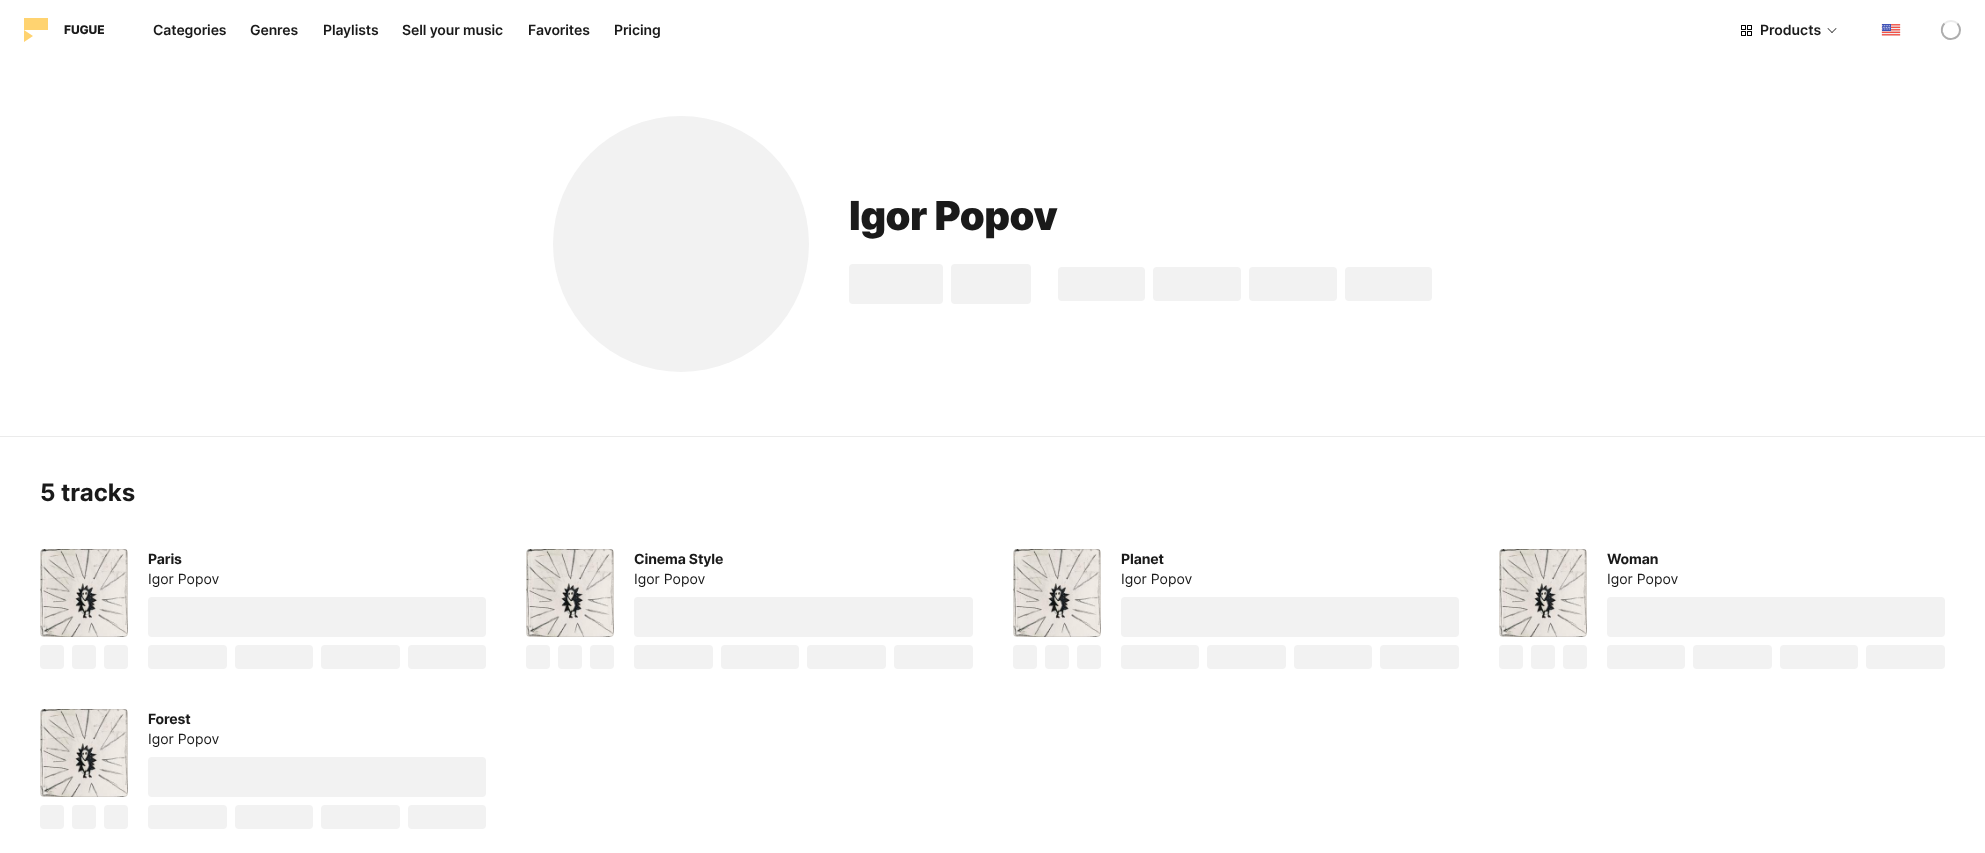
(async () => {
const canvas = document.querySelector("canvas")
canvas.width = 1985
canvas.height = 853
const c = canvas.getContext("2d")
c.miterLimit = 4
c.fontKerning = "normal"
function T(s,x,y){c.fillText(s,x,y)}
function R(x,y,w,h){c.fillRect(x,y,w,h)}
function Q(x,y,w,h,r){c.beginPath();c.roundRect(x,y,w,h,r);c.fill()}
async function I(src,x,y,w,h){const img=new Image();img.src=src;await img.decode();c.drawImage(img,x,y,w,h)}
let path
c.fillStyle="#fff"
R(0,0,1985,853)
c.fillStyle="#ffd370"
path = new Path2D("M48 30v-12h-24v24l9-6l-9-6z")
c.fill(path)
c.letterSpacing="-0.1px"
c.font="800 12px Inter"
c.fillStyle="#1a1a1a"
T("FUGUE",64,34)
c.font="600 14px Inter"
T("Categories",153,35)
T("Genres",250,35)
T("Playlists",323,35)
T("Sell your music",402,35)
T("Favorites",528,35)
T("Pricing",614,35)
await I("1.png",1741,25,11,11)
c.letterSpacing="0px"
T("Products",1760,35)
path = new Path2D("M1828 28l4.5 4.5l-.5 .5l-4.5-4.5z")
c.fill(path)
path = new Path2D("M1831.5 32.5l4.5-4.5l.5 .5l-4.5 4.5z")
c.fill(path)
await I("2.png",1881,24,20,12)
path = new Path2D("M1944.5 23.5c3.5-3.5 9.5-3.5 13 0")
c.strokeStyle="#ebebeb"
c.lineWidth=2
c.stroke(path)
path = new Path2D("M1957.5 23.5c1.5 2 2.5 4 2.5 6.5c0 10.5-15.5 12.5-18 2c-.5-3 .5-6.5 2.5-8.5")
c.strokeStyle="#999999cc"
c.stroke(path)
c.fillStyle="#f2f2f2"
c.beginPath()
c.arc(681,244,128,0,7)
c.fill()
c.letterSpacing="-0.5px"
c.font="900 40px Inter"
c.fillStyle="#1a1a1a"
T("Igor Popov",849,230)
c.fillStyle="#f2f2f2"
Q(849,264,94,40,4)
c.beginPath()
c.roundRect(951,264,40,40,[4,0,0,4])
c.fill()
c.beginPath()
c.roundRect(991,264,40,40,[0,4,4,0])
c.fill()
Q(1058,267,87,34,4)
Q(1153,267,88,34,4)
Q(1249,267,88,34,4)
Q(1345,267,87,34,4)
c.fillStyle="#ebebeb"
path = new Path2D("M0 436h1985l-1 1h-1983z")
c.fill(path)
c.fillStyle="#e1e1e1"
path = new Path2D("M1985 436v1h-1z")
c.fill(path)
c.fillStyle="#e2e2e2"
path = new Path2D("M0 437v-1l1 1z")
c.fill(path)
c.letterSpacing="0px"
c.font="bold 24px Inter"
c.fillStyle="#1a1a1a"
T("5 tracks",40,501)
await I("3.png",40,549,88,88)
c.beginPath()
c.roundRect(40.5,549.5,87,87,3.5)
c.strokeStyle="#00000014"
c.lineWidth=1
c.stroke()
c.fillStyle="#f2f2f2"
Q(40,645,24,24,4)
Q(72,645,24,24,4)
Q(104,645,24,24,4)
c.letterSpacing="-0.1px"
c.font="bold 14px Inter"
c.fillStyle="#1a1a1a"
T("Paris",148,564)
c.letterSpacing="0px"
c.font="14px Inter"
T("Igor Popov",148,584)
c.fillStyle="#f2f2f2"
Q(148,597,338,40,4)
Q(148,645,79,24,4)
Q(235,645,78,24,4)
Q(321,645,79,24,4)
Q(408,645,78,24,4)
await I("4.png",526,549,88,88)
c.beginPath()
c.roundRect(526.5,549.5,87,87,3.5)
c.stroke()
Q(526,645,24,24,4)
Q(558,645,24,24,4)
Q(590,645,24,24,4)
c.letterSpacing="-0.1px"
c.font="bold 14px Inter"
c.fillStyle="#1a1a1a"
T("Cinema Style",634,564)
c.letterSpacing="0px"
c.font="14px Inter"
T("Igor Popov",634,584)
c.fillStyle="#f2f2f2"
Q(634,597,339,40,4)
Q(634,645,79,24,4)
Q(721,645,78,24,4)
Q(807,645,79,24,4)
Q(894,645,79,24,4)
await I("5.png",1013,549,88,88)
c.beginPath()
c.roundRect(1013.5,549.5,87,87,3.5)
c.stroke()
Q(1013,645,24,24,4)
Q(1045,645,24,24,4)
Q(1077,645,24,24,4)
c.letterSpacing="-0.1px"
c.font="bold 14px Inter"
c.fillStyle="#1a1a1a"
T("Planet",1121,564)
c.letterSpacing="0px"
c.font="14px Inter"
T("Igor Popov",1121,584)
c.fillStyle="#f2f2f2"
Q(1121,597,338,40,4)
Q(1121,645,78,24,4)
Q(1207,645,79,24,4)
Q(1294,645,78,24,4)
Q(1380,645,79,24,4)
await I("6.png",1499,549,88,88)
c.beginPath()
c.roundRect(1499.5,549.5,87,87,3.5)
c.stroke()
Q(1499,645,24,24,4)
Q(1531,645,24,24,4)
Q(1563,645,24,24,4)
c.letterSpacing="-0.1px"
c.font="bold 14px Inter"
c.fillStyle="#1a1a1a"
T("Woman",1607,564)
c.letterSpacing="0px"
c.font="14px Inter"
T("Igor Popov",1607,584)
c.fillStyle="#f2f2f2"
Q(1607,597,338,40,4)
Q(1607,645,78,24,4)
Q(1693,645,79,24,4)
Q(1780,645,78,24,4)
Q(1866,645,79,24,4)
await I("3.png",40,709,88,88)
c.beginPath()
c.roundRect(40.5,709.5,87,87,3.5)
c.stroke()
Q(40,805,24,24,4)
Q(72,805,24,24,4)
Q(104,805,24,24,4)
c.letterSpacing="-0.1px"
c.font="bold 14px Inter"
c.fillStyle="#1a1a1a"
T("Forest",148,724)
c.letterSpacing="0px"
c.font="14px Inter"
T("Igor Popov",148,744)
c.fillStyle="#f2f2f2"
Q(148,757,338,40,4)
Q(148,805,79,24,4)
Q(235,805,78,24,4)
Q(321,805,79,24,4)
Q(408,805,78,24,4)
})()
